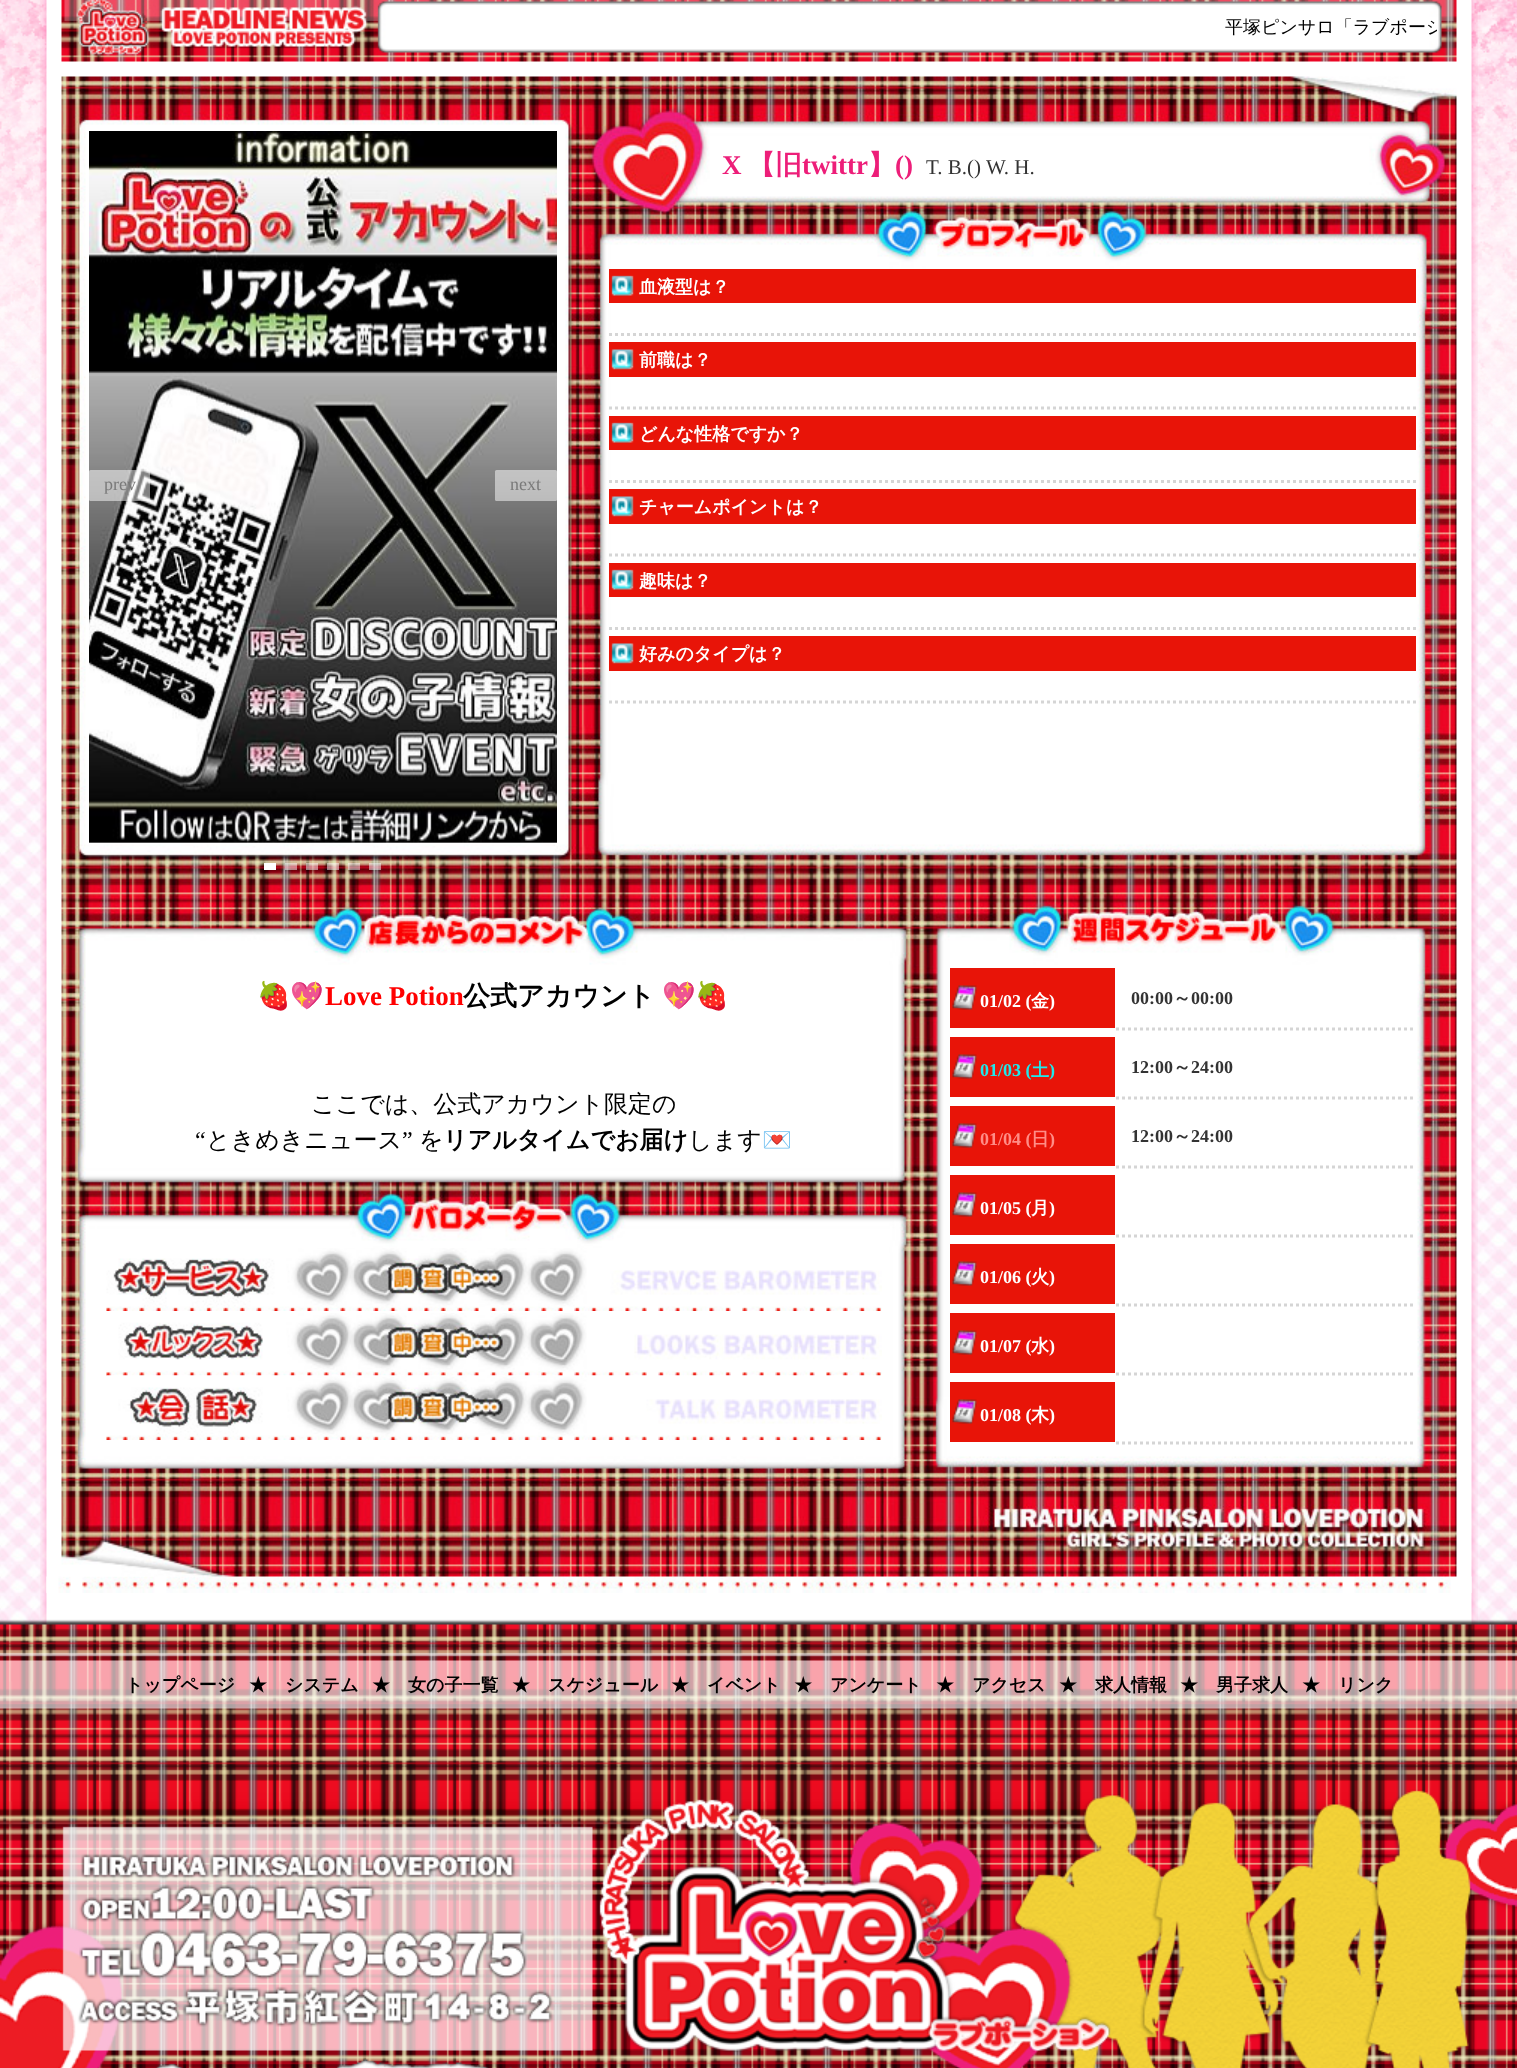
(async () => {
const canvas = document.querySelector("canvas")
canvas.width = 1517
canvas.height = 2068
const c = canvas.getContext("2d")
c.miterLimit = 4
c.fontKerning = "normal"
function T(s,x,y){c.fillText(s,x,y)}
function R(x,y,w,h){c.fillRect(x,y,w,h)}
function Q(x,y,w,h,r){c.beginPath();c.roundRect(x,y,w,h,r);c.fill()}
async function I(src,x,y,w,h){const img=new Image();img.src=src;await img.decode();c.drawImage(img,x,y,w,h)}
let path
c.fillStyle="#fff"
R(0,0,1517,2068)
await I("1.png",0,0,1517,1625)
await I("2.png",0,0,1517,480)
await I("3.png",40,0,1438,1625)
await I("4.png",61,0,1396,62)
c.save()
c.beginPath()
c.rect(387,8,1050,39)
c.clip()
c.font="500 18px WenQuanYi Zen Hei"
c.fillStyle="#000"
T("平塚ピンサロ「ラブポーシ",1225,33)
c.restore()
await I("13.png",46,1576,1426,17)
await I("5.png",61,76,1396,1501)
c.font="bold 27px Liberation Serif"
c.fillStyle="#ed1e79"
T("X",722,174)
c.font="bold 27px WenQuanYi Zen Hei"
T("【旧",748,174)
c.font="bold 27px Liberation Serif"
T("twittr",802,174)
c.font="bold 27px WenQuanYi Zen Hei"
T("】",868,174)
c.font="bold 27px Liberation Serif"
T("()",895,174)
c.font="21px Liberation Serif"
c.fillStyle="#333"
T("T. B.() W. H.",926,174)
await I("6.png",89,131,468,712)
c.fillStyle="#ffffff80"
Q(89,470,61,31,1.5)
c.font="18px Liberation Serif"
c.fillStyle="#797979"
T("prev",104,490)
c.fillStyle="#ffffff80"
Q(495,470,62,31,1.5)
c.fillStyle="#797979"
T("next",510,490)
c.fillStyle="#fff"
R(264,863,12,7)
c.fillStyle="#ffffff80"
R(285,863,12,7)
R(306,863,12,7)
R(327,863,12,7)
R(348,863,12,7)
R(369,863,12,7)
c.fillStyle="#e81408"
R(609,269,807,34)
await I("7.png",611,275,23,21)
c.font="bold 18px WenQuanYi Zen Hei"
c.fillStyle="#fff"
T("血液型は？",639,293)
path = new Path2D("M609 334.5h807")
c.strokeStyle="#d5d5d5"
c.lineWidth=3
c.setLineDash([3,3])
c.stroke(path)
c.fillStyle="#e81408"
R(609,342,807,35)
await I("8.png",611,349,23,21)
c.fillStyle="#fff"
T("前職は？",639,366)
path = new Path2D("M609 408h807")
c.stroke(path)
c.fillStyle="#e81408"
R(609,416,807,34)
await I("7.png",611,422,23,21)
c.fillStyle="#fff"
T("どんな性格ですか？",639,440)
path = new Path2D("M609 481.5h807")
c.stroke(path)
c.fillStyle="#e81408"
R(609,489,807,35)
await I("8.png",611,496,23,21)
c.fillStyle="#fff"
T("チャームポイントは？",639,513)
path = new Path2D("M609 555h807")
c.stroke(path)
c.fillStyle="#e81408"
R(609,563,807,34)
await I("7.png",611,569,23,21)
c.fillStyle="#fff"
T("趣味は？",639,587)
path = new Path2D("M609 628.5h807")
c.stroke(path)
c.fillStyle="#e81408"
R(609,636,807,35)
await I("8.png",611,643,23,21)
c.fillStyle="#fff"
T("好みのタイプは？",639,660)
path = new Path2D("M609 702h807")
c.stroke(path)
c.font="27px Noto Color Emoji"
c.fillStyle="#000"
T("🍓💖",257,1005)
c.font="bold 27px Liberation Serif"
c.fillStyle="#f00"
T("Love Potion",325,1005)
c.font="bold 27px WenQuanYi Zen Hei"
c.fillStyle="#000"
T("公式アカウント",463,1005)
c.font="27px Noto Color Emoji"
T("💖🍓",662,1005)
c.font="500 24px WenQuanYi Zen Hei"
T("ここでは、公式アカウント限定の",311,1112)
c.font="24px Liberation Serif"
T("“",195,1148)
c.font="500 24px WenQuanYi Zen Hei"
T("ときめきニュース",206,1148)
c.font="24px Liberation Serif"
T("”",402,1148)
c.font="500 24px WenQuanYi Zen Hei"
T("を",419,1148)
c.font="bold 24px WenQuanYi Zen Hei"
T("リアルタイムでお届け",443,1148)
c.font="500 24px WenQuanYi Zen Hei"
T("します",688,1148)
c.font="24px Noto Color Emoji"
T("💌",762,1148)
c.fillStyle="#e81408"
R(950,968,165,60)
await I("9.png",952,985,25,25)
c.font="bold 18px Liberation Serif"
c.fillStyle="#fff"
T("01/02 (",980,1007)
c.font="bold 18px WenQuanYi Zen Hei"
T("金",1031,1007)
c.font="bold 18px Liberation Serif"
T(")",1049,1007)
path = new Path2D("M1116 1029h300")
c.stroke(path)
c.fillStyle="#333"
T("00:00",1131,1004)
c.font="bold 18px WenQuanYi Zen Hei"
T("～",1173,1004)
c.font="bold 18px Liberation Serif"
T("00:00",1191,1004)
c.fillStyle="#e81408"
R(950,1037,165,60)
await I("9.png",952,1054,25,25)
c.fillStyle="#1ee9ed"
T("01/03 (",980,1076)
c.font="bold 18px WenQuanYi Zen Hei"
T("土",1031,1076)
c.font="bold 18px Liberation Serif"
T(")",1049,1076)
path = new Path2D("M1116 1098h300")
c.stroke(path)
c.fillStyle="#333"
T("12:00",1131,1073)
c.font="bold 18px WenQuanYi Zen Hei"
T("～",1173,1073)
c.font="bold 18px Liberation Serif"
T("24:00",1191,1073)
c.fillStyle="#e81408"
R(950,1106,165,60)
await I("9.png",952,1123,25,25)
c.fillStyle="#ff8d87"
T("01/04 (",980,1145)
c.font="bold 18px WenQuanYi Zen Hei"
T("日",1031,1145)
c.font="bold 18px Liberation Serif"
T(")",1049,1145)
path = new Path2D("M1116 1167h300")
c.stroke(path)
c.fillStyle="#333"
T("12:00",1131,1142)
c.font="bold 18px WenQuanYi Zen Hei"
T("～",1173,1142)
c.font="bold 18px Liberation Serif"
T("24:00",1191,1142)
c.fillStyle="#e81408"
R(950,1175,165,60)
await I("9.png",952,1192,25,25)
c.fillStyle="#fff"
T("01/05 (",980,1214)
c.font="bold 18px WenQuanYi Zen Hei"
T("月",1031,1214)
c.font="bold 18px Liberation Serif"
T(")",1049,1214)
path = new Path2D("M1116 1236h300")
c.stroke(path)
c.fillStyle="#e81408"
R(950,1244,165,60)
await I("9.png",952,1261,25,25)
c.fillStyle="#fff"
T("01/06 (",980,1283)
c.font="bold 18px WenQuanYi Zen Hei"
T("火",1031,1283)
c.font="bold 18px Liberation Serif"
T(")",1049,1283)
path = new Path2D("M1116 1305h300")
c.stroke(path)
c.fillStyle="#e81408"
R(950,1313,165,60)
await I("9.png",952,1330,25,25)
c.fillStyle="#fff"
T("01/07 (",980,1352)
c.font="bold 18px WenQuanYi Zen Hei"
T("水",1031,1352)
c.font="bold 18px Liberation Serif"
T(")",1049,1352)
path = new Path2D("M1116 1374h300")
c.stroke(path)
c.fillStyle="#e81408"
R(950,1382,165,60)
await I("9.png",952,1399,25,25)
c.fillStyle="#fff"
T("01/08 (",980,1421)
c.font="bold 18px WenQuanYi Zen Hei"
T("木",1031,1421)
c.font="bold 18px Liberation Serif"
T(")",1049,1421)
path = new Path2D("M1116 1443h300")
c.stroke(path)
await I("10.png",106,1248,776,63)
await I("11.png",106,1313,776,63)
await I("12.png",106,1375,776,65)
await I("14.png",0,1619,1517,449)
c.font="bold 18px WenQuanYi Zen Hei"
c.fillStyle="#000"
T("トップページ",125,1691)
T("★",249,1691)
T("システム",285,1691)
T("★",372,1691)
T("女の子一覧",408,1691)
T("★",512,1691)
T("スケジュール",548,1691)
T("★",671,1691)
T("イベント",707,1691)
T("★",794,1691)
T("アンケート",830,1691)
T("★",936,1691)
T("アクセス",972,1691)
T("★",1059,1691)
T("求人情報",1095,1691)
T("★",1180,1691)
T("男子求人",1216,1691)
T("★",1302,1691)
T("リンク",1338,1691)
})()
